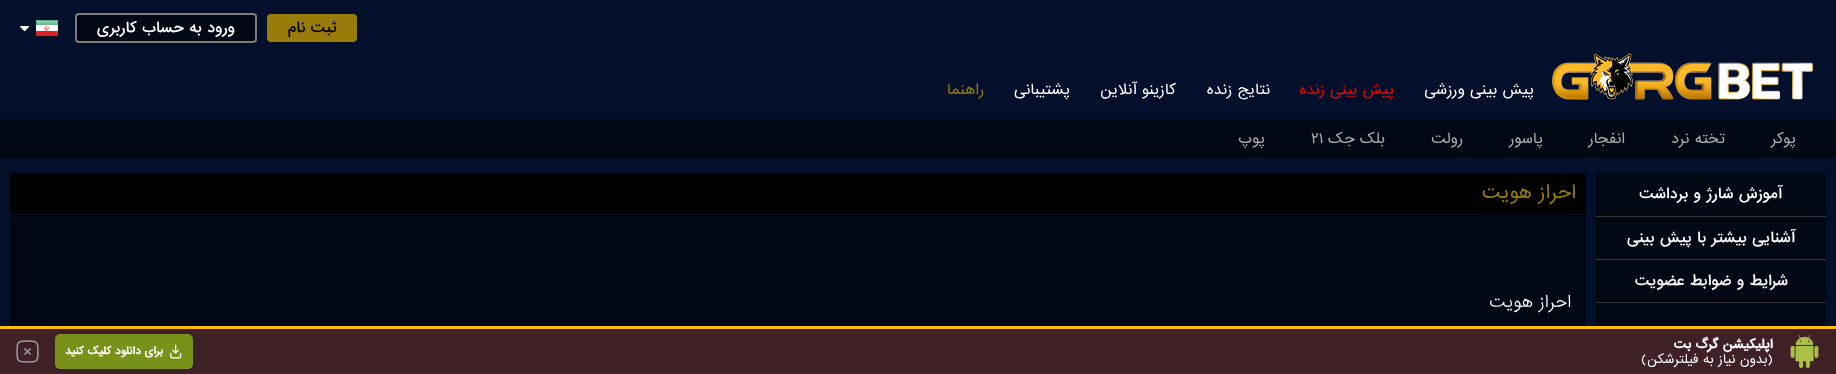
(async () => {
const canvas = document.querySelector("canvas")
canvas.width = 1836
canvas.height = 374
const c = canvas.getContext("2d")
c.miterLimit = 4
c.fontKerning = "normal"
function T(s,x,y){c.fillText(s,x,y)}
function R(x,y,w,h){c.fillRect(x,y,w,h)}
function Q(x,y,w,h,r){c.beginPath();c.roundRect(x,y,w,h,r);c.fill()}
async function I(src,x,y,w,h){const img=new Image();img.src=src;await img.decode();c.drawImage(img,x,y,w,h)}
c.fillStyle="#030f2b"
R(0,0,1836,374)
c.fillStyle="#977c09"
Q(267,14,90,28,4)
c.direction="rtl"
c.font="500 14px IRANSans"
c.fillStyle="#000"
T("ثبت نام",337,32)
c.fillStyle="#020714"
c.beginPath()
c.roundRect(76,14,180,28,3)
c.fill()
c.strokeStyle="#7a7a7a"
c.lineWidth=2
c.stroke()
c.fillStyle="#fff"
T("ورود به حساب کاربری",235,32)
await I("1.png",35,20,24,17)
await I("2.png",20,26,10,6)
await I("3.png",1552,53,261,47)
c.font="14px IRANSans"
T("پیش بینی ورزشی",1534,94)
c.fillStyle="#f00"
T("پیش بینی زنده",1394,94)
c.fillStyle="#fff"
T("نتایج زنده",1270,94)
T("کازینو آنلاین",1176,94)
T("پشتیبانی",1070,94)
c.fillStyle="#977c09"
T("راهنما",984,94)
c.fillStyle="#020714"
R(0,119,1836,39)
c.fillStyle="#acacac"
T("پوکر",1796,143)
T("تخته نرد",1725,143)
T("انفجار",1625,143)
T("پاسور",1543,143)
T("رولت",1463,143)
T("بلک جک",1385,143)
c.direction="ltr"
T("۲۱",1311,143)
c.direction="rtl"
T("پوپ",1265,143)
c.fillStyle="#020714"
R(1596,173,230,153)
c.fillStyle="#333"
R(1596,216,230,1)
c.font="500 14px IRANSans"
c.fillStyle="#fff"
T("آموزش شارژ و برداشت",1782,198)
c.fillStyle="#333"
R(1596,259,230,1)
c.fillStyle="#fff"
T("آشنایی بيشتر با پیش بینی",1795,242)
c.fillStyle="#333"
R(1596,302,230,1)
c.fillStyle="#fff"
T("شرایط و ضوابط عضویت",1788,285)
c.fillStyle="#020714"
R(10,215,1576,111)
c.fillStyle="#000"
R(10,173,1576,41)
c.font="18px IRANSans"
c.fillStyle="#977c09"
T("احراز هویت",1576,198)
c.font="300 16px IRANSans"
c.fillStyle="#fff"
T("احراز هويت",1571,307)
c.fillStyle="#3f2024"
R(0,329,1836,45)
c.fillStyle="#ffba00"
R(0,326,1836,3)
await I("4.png",1790,335,29,33)
c.font="bold 12px IRANSans"
c.fillStyle="#fff"
T("اپلیکیشن گرگ بت",1773,348)
c.font="12px IRANSans"
T("(بدون نیاز به فیلترشکن)",1773,363)
c.fillStyle="#789118"
Q(55,334,138,35,5)
await I("5.png",170,344,12,15)
c.font="bold 10px IRANSans"
c.fillStyle="#fff"
T("برای دانلود کلیک کنید",163,354)
await I("6.png",16,340,23,23)
})()
